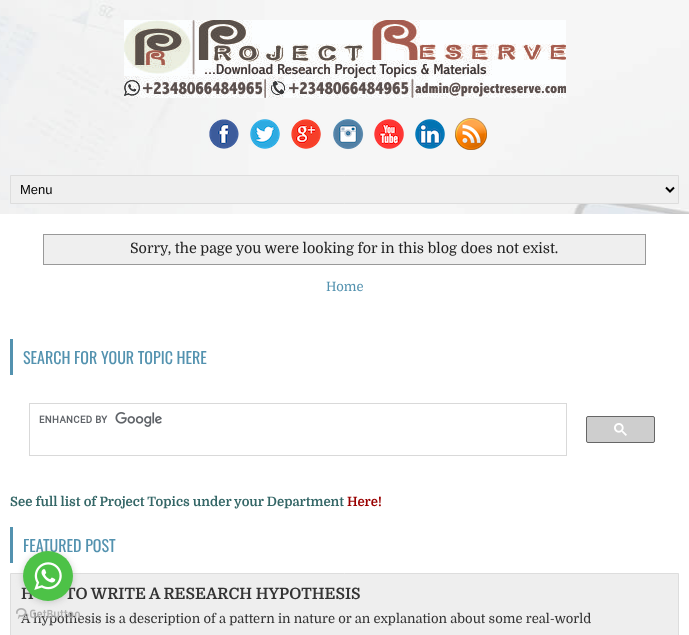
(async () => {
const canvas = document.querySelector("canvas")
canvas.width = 689
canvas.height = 635
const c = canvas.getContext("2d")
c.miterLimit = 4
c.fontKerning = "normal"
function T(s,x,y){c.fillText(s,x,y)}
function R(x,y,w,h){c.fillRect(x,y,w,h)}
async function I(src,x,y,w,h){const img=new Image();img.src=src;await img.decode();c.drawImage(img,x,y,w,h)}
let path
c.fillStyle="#fff"
R(0,0,689,635)
await I("1.png",0,0,689,214)
await I("2.png",124,20,442,78)
await I("3.png",209,119,30,30)
await I("4.png",250,119,30,30)
await I("5.png",291,119,30,30)
await I("6.png",333,119,31,31)
await I("7.png",374,119,30,30)
await I("8.png",415,119,30,30)
await I("9.png",455,118,32,32)
c.fillStyle="#efefef"
c.beginPath()
c.rect(10.5,175.5,668,28)
c.fill()
c.strokeStyle="#ddd"
c.stroke()
path = new Path2D("M666 187.5l4 4l4-4")
c.strokeStyle="#000"
c.lineWidth=2
c.stroke(path)
c.font="13px Liberation Sans"
c.fillStyle="#000"
T("Menu",20,194)
c.strokeStyle="#999"
c.lineWidth=1
c.strokeRect(43.5,234.5,602,30)
c.fillStyle="#efefef"
R(44,235,601,29)
c.font="14.3px Domine"
c.fillStyle="#222"
T("Sorry, the page you were looking for in this blog does not exist.",130,253)
c.font="13px Domine"
c.fillStyle="#5392af"
T("Home",326,291)
R(10,339,3,36)
c.font="16px Oswald"
T("SEARCH FOR YOUR TOPIC HERE",23,364)
c.strokeStyle="#d9d9d9"
c.strokeRect(29.5,403.5,537,52)
await I("10.png",39,412,123,15)
c.fillStyle="#cecece"
c.beginPath()
c.roundRect(586.5,416.5,68,26,1.5)
c.fill()
c.strokeStyle="#666"
c.stroke()
await I("11.png",614,423,13,13)
c.font="bold 13px Domine"
c.fillStyle="#366"
T("See full list of Project Topics under your Department",10,506)
c.fillStyle="#900"
T("Here!",347,506)
c.fillStyle="#5392af"
R(10,527,3,36)
c.font="16px Oswald"
T("FEATURED POST",23,552)
c.fillStyle="#eee"
c.beginPath()
c.rect(10.5,573.5,668,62)
c.fill()
c.strokeStyle="#ddd"
c.stroke()
c.font="bold 15.6px Domine"
c.fillStyle="#333"
T("H",21,599)
T("TO WRITE A RESEARCH HYPOTHESIS",65,599)
c.font="13px Domine"
T("A hypothesis is a description of a pattern in nature or an explanation about some real-world",21,623)
await I("13.png",16,608,64,11)
c.fillStyle="#88888866"
c.filter="blur(3.5px)"
c.beginPath()
c.roundRect(23,552,50,50,25)
c.fill()
c.filter="none"
c.fillStyle="#4dc247"
c.beginPath()
c.arc(48,576,25,0,7)
c.fill()
await I("12.png",34,562,28,28)
})()
